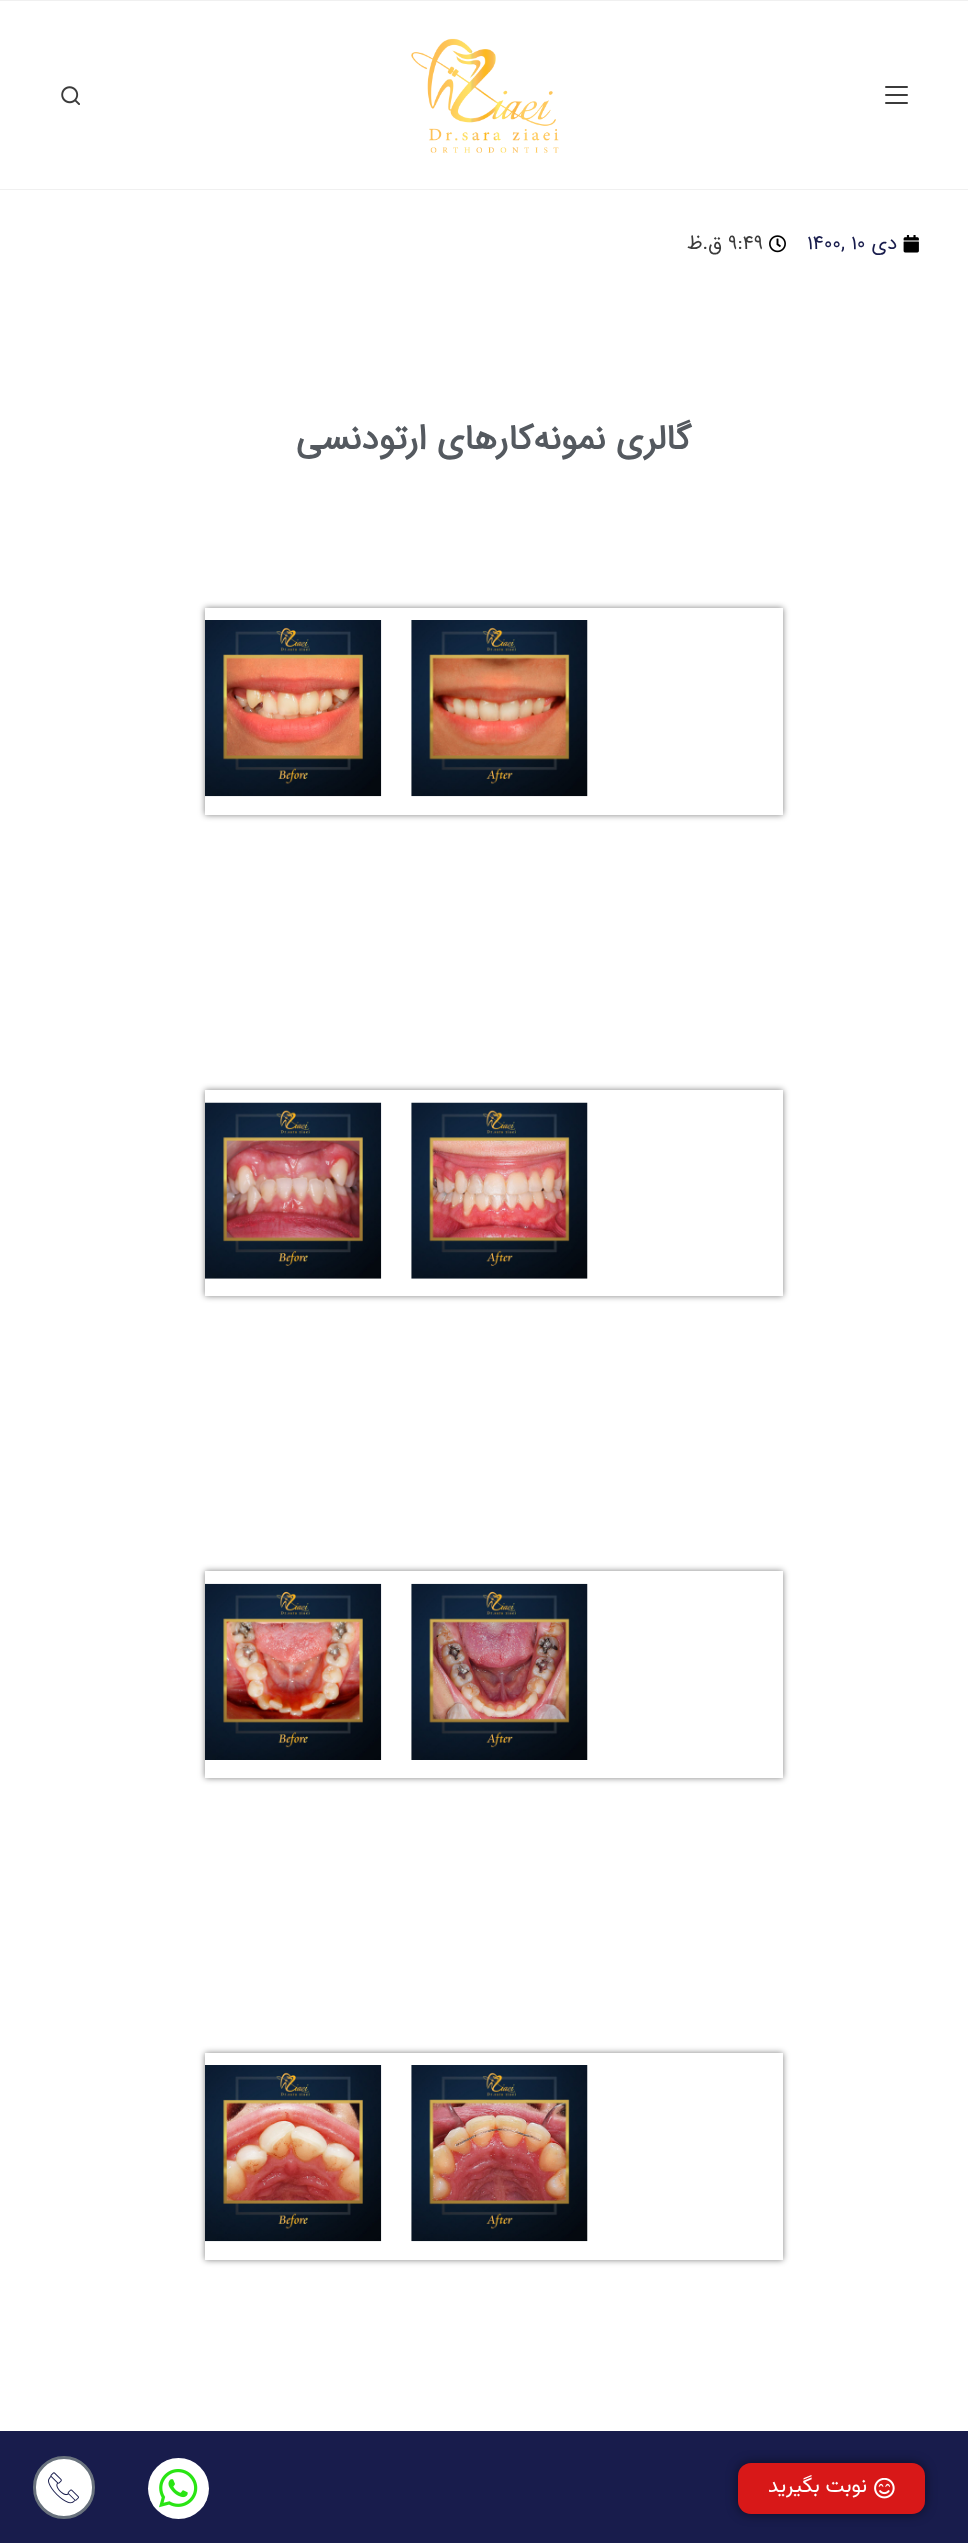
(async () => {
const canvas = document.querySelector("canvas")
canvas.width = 968
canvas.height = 2543
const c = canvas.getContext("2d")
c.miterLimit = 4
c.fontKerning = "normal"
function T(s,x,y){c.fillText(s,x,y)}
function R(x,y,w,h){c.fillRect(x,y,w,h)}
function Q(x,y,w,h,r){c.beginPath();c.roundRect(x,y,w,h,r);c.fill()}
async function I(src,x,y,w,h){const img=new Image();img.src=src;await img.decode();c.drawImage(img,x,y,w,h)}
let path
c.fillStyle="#fff"
R(0,0,968,2543)
c.fillStyle="#f0f0f0"
R(0,0,968,1)
R(0,189,968,1)
c.fillStyle="#3b3b3b"
Q(885,86,23,2,1)
Q(885,94,23,2,1)
Q(885,102,23,2,1)
await I("1.png",411,38,148,115)
await I("2.png",61,86,19,19)
await I("3.png",903,235,16,18)
c.direction="rtl"
c.font="20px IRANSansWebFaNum"
c.fillStyle="#181c4c"
T("دی",897,249)
c.direction="ltr"
T("۱۴۰۰, ۱۰",807,249)
await I("4.png",769,235,17,18)
c.fillStyle="#3b3b3b"
T("۹:۴۹",728,249)
c.direction="rtl"
T("ق.ظ",722,249)
c.font="bold 35px IRANSansWebFaNum"
c.fillStyle="#54595f"
T("گالری نمونه‌کارهای ارتودنسی",691,449)
c.save()
path = new Path2D("M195 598h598v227h-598zm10 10h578v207h-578z")
c.clip(path,"evenodd")
c.fillStyle="#00000080"
c.filter="blur(3px)"
c.beginPath()
c.rect(205,608,578,207)
c.fill()
c.filter="none"
c.restore()
await I("5.png",411,620,177,177)
await I("6.png",205,620,177,177)
c.save()
path = new Path2D("M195 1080h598v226h-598zm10 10h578v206h-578z")
c.clip(path,"evenodd")
c.fillStyle="#00000080"
c.filter="blur(3px)"
c.beginPath()
c.rect(205,1090,578,206)
c.fill()
c.filter="none"
c.restore()
await I("7.png",411,1102,177,177)
await I("8.png",205,1102,177,177)
c.save()
path = new Path2D("M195 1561h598v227h-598zm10 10h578v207h-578z")
c.clip(path,"evenodd")
c.fillStyle="#00000080"
c.filter="blur(3px)"
c.beginPath()
c.rect(205,1571,578,207)
c.fill()
c.filter="none"
c.restore()
await I("9.png",411,1583,177,177)
await I("10.png",205,1583,177,177)
c.save()
path = new Path2D("M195 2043h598v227h-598zm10 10h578v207h-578z")
c.clip(path,"evenodd")
c.fillStyle="#00000080"
c.filter="blur(3px)"
c.beginPath()
c.rect(205,2053,578,207)
c.fill()
c.filter="none"
c.restore()
await I("11.png",411,2065,177,177)
await I("12.png",205,2065,177,177)
c.fillStyle="#181c4c"
R(0,2431,968,112)
c.fillStyle="#00000080"
c.filter="blur(6px)"
c.beginPath()
c.roundRect(738,2463,187,51,13)
c.fill()
c.filter="none"
c.fillStyle="#d81818"
Q(738,2463,187,51,13)
await I("13.png",874,2478,21,21)
c.font="21.25px Vazirmatn"
c.fillStyle="#fff"
T("نوبت بگیرید",867,2492)
c.beginPath()
c.arc(178.5,2488.5,30.5,0,7)
c.fill()
await I("14.png",159,2469,39,39)
c.beginPath()
c.roundRect(34.5,2457.5,59,60,29.5)
c.fill()
c.strokeStyle="#69727d"
c.lineWidth=3
c.stroke()
await I("15.png",48,2472,31,32)
})()
